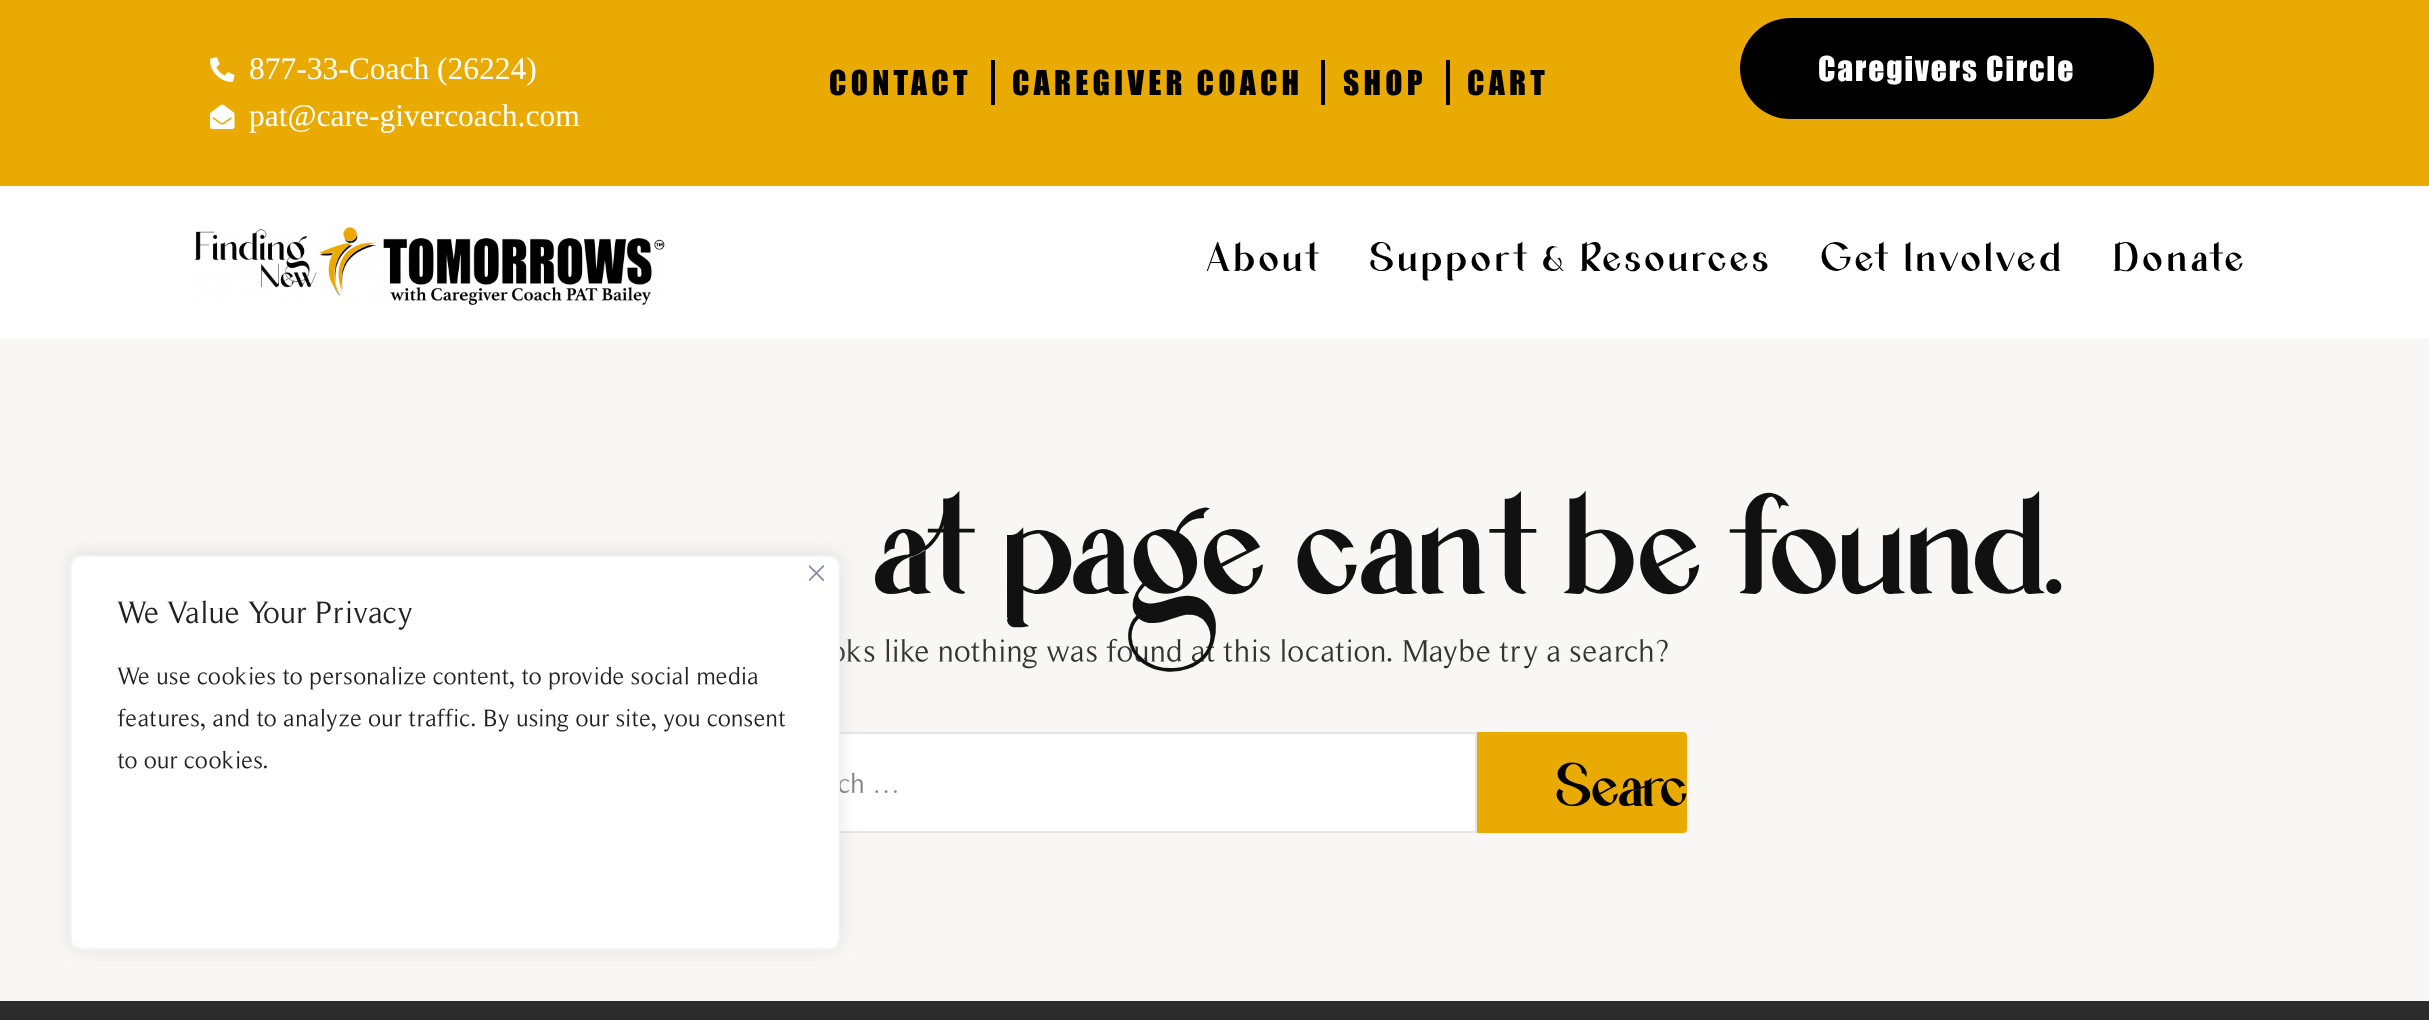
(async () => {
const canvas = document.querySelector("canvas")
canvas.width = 2429
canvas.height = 1020
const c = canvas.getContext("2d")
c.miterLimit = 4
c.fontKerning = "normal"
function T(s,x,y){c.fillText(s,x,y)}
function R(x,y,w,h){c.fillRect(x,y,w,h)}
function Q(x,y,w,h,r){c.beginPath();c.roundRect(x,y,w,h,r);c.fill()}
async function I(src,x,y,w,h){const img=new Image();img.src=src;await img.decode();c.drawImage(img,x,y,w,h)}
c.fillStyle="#fff"
R(0,0,2429,1020)
c.fillStyle="#e9aa03"
R(0,0,2429,186)
await I("1.png",210,57,25,25)
c.font="31.5px Liberation Serif"
c.fillStyle="#fff"
T("877-33-Coach (26224)",249,79)
await I("2.png",210,104,25,26)
T("pat@care-givercoach.com",249,126)
c.letterSpacing="4.25px"
c.font="31.5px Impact"
c.fillStyle="#010000"
T("CONTACT",829,95)
R(991,60,4,45)
T("CAREGIVER COACH",1012,95)
R(1321,60,4,45)
T("SHOP",1343,95)
R(1446,60,4,45)
T("CART",1467,95)
c.fillStyle="#000"
Q(1740,18,414,101,50.5)
c.letterSpacing="1.9px"
c.fillStyle="#fff"
T("Caregivers Circle",1818,81)
await I("3.png",194,227,471,78)
c.letterSpacing="4.25px"
c.font="bold 21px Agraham"
c.fillStyle="#010000"
T("About",1206,271)
T("Support & Resources",1370,271)
T("Get Involved",1821,271)
T("Donate",2113,271)
c.fillStyle="#f8f7f5"
R(0,338,2429,663)
await I("9.png",840,638,828,31)
c.fillStyle="#fff"
R(840,732,637,101)
c.strokeStyle="#0000001a"
c.lineWidth=2
c.strokeRect(743,733,733,99)
await I("10.png",840,772,57,21)
c.fillStyle="#acabab4d"
c.filter="blur(9px)"
c.beginPath()
c.roundRect(70,553,770,396,11)
c.fill()
c.filter="none"
c.fillStyle="#fff"
c.beginPath()
c.roundRect(71,556,768,393,10)
c.fill()
c.strokeStyle="#f4f4f4"
c.stroke()
await I("4.png",809,565,15,16)
await I("5.png",117,600,295,30)
await I("6.png",117,666,641,24)
await I("7.png",117,708,669,24)
await I("8.png",117,750,150,19)
c.letterSpacing="0px"
c.font="bold 73.5px Agraham"
c.fillStyle="#111"
T("at page can’t be found.",872,594)
c.fillStyle="#e9aa03"
c.beginPath()
c.roundRect(1477,732,210,101,[0,4,4,0])
c.fill()
c.font="bold 31.5px Agraham"
c.fillStyle="#010000"
T("Searc",1556,806)
c.fillStyle="#2c2c2c"
R(0,1001,2429,19)
})()
